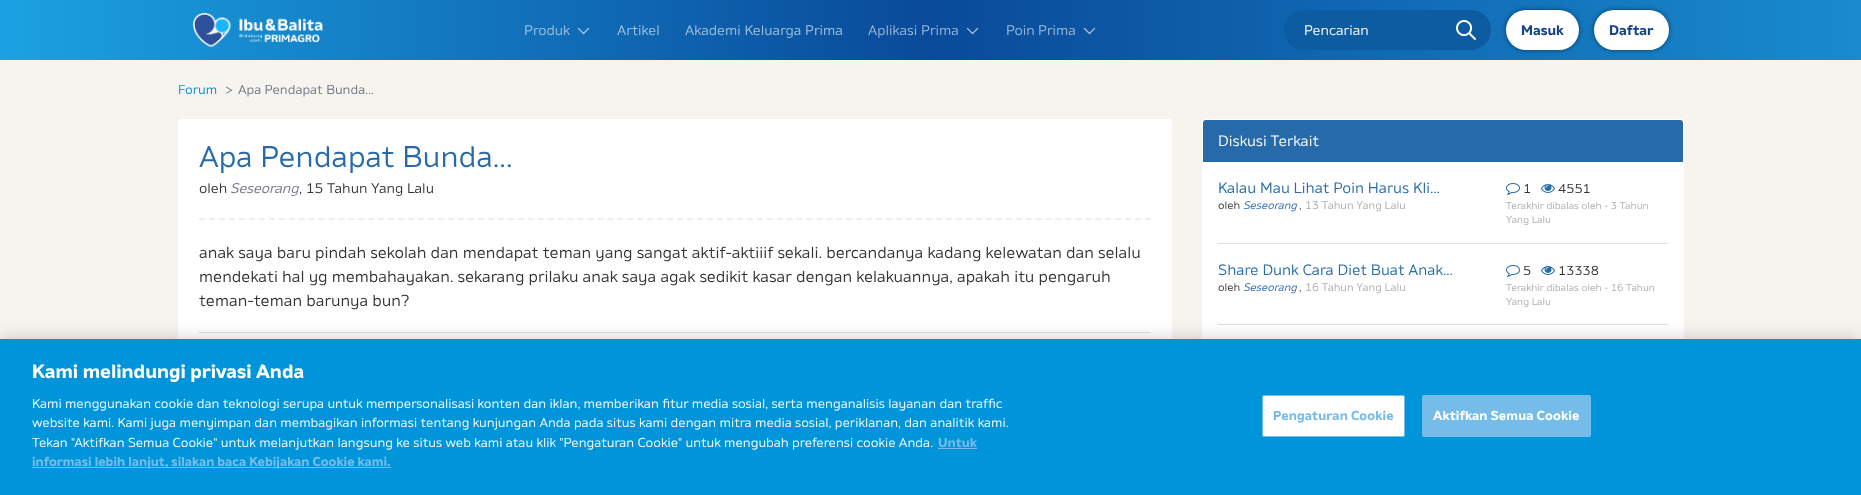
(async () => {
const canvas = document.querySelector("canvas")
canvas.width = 1861
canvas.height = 495
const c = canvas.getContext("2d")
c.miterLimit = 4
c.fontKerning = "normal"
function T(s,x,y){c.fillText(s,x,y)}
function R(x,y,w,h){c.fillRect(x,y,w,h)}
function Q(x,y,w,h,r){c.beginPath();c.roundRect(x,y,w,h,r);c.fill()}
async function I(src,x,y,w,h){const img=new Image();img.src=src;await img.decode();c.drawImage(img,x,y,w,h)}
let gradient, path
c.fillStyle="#f5f4ef"
R(0,0,1861,495)
gradient = c.createLinearGradient(0,30,1861,30)
gradient.addColorStop(0,"#1ba2e2")
gradient.addColorStop(.5,"#094a9a")
gradient.addColorStop(1,"#198bce")
c.fillStyle = gradient
R(0,0,1861,60)
await I("1.png",193,13,130,34)
c.font="14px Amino"
c.fillStyle="#9fc2e0"
T("Produk",524,35)
path = new Path2D("M588.5 28.5l-5 5l-5-5")
c.strokeStyle="#9fc4e1"
c.lineWidth=1.4
c.lineCap="round"
c.lineJoin="round"
c.stroke(path)
T("Artikel",617,35)
T("Akademi Keluarga Prima",685,35)
c.fillStyle="#9db8d8"
T("Aplikasi",868,35)
T("Prima",921,35)
path = new Path2D("M977.5 28.5l-5 5l-5-5")
c.strokeStyle="#9db8d8"
c.stroke(path)
T("Poin",1006,35)
T("Prima",1038,35)
path = new Path2D("M1094.5 28.5l-5 5l-5-5")
c.strokeStyle="#9ebbda"
c.stroke(path)
c.fillStyle="#0d5ba1"
Q(1284,10,207,40,20)
c.fillStyle="#fff"
T("Pencarian",1304,35)
await I("2.png",1456,20,20,20)
c.fillStyle="#00000080"
c.filter="blur(2.5px)"
c.beginPath()
c.roundRect(1506,10,73,40,20)
c.fill()
c.filter="none"
c.fillStyle="#fff"
Q(1506,10,73,40,20)
c.font="bold 14px Amino"
c.fillStyle="#184586"
T("Masuk",1521,35)
c.fillStyle="#00000080"
c.filter="blur(2.5px)"
c.beginPath()
c.roundRect(1594,10,75,40,20)
c.fill()
c.filter="none"
c.fillStyle="#fff"
Q(1594,10,75,40,20)
c.fillStyle="#184586"
T("Daftar",1609,35)
c.font="13px Amino"
c.fillStyle="#098ecc"
T("Forum",178,94)
c.fillStyle="#727385"
T(">",225,94)
T("Apa Pendapat Bunda...",238,94)
c.fillStyle="#fff"
Q(178,119,994,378,2)
c.font="30px Amino"
c.fillStyle="#276aa9"
T("Apa Pendapat Bunda...",199,167)
c.font="14px Amino"
c.fillStyle="#333"
T("oleh",199,193)
c.font="italic 14px Amino"
c.fillStyle="#727385"
T("Seseorang",230,193)
c.font="14px Amino"
c.fillStyle="#333"
T(", 15 Tahun Yang Lalu",299,193)
path = new Path2D("M199 219h952")
c.strokeStyle="#efefef"
c.lineWidth=2
c.lineCap="butt"
c.lineJoin="miter"
c.setLineDash([6,3.96])
c.stroke(path)
c.font="16px Amino"
T("anak saya baru pindah sekolah dan mendapat teman yang sangat aktif-aktiiif sekali. bercandanya kadang kelewatan dan selalu",199,258)
T("mendekati hal yg membahayakan. sekarang prilaku anak saya agak sedikit kasar dengan kelakuannya, apakah itu pengaruh",199,282)
T("teman-teman barunya bun?",199,306)
c.fillStyle="#dedfe2"
R(199,332,952,1)
c.fillStyle="#fff"
Q(1202,119,482,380,4)
c.fillStyle="#276aa9"
c.beginPath()
c.roundRect(1203,120,480,42,[3,3,0,0])
c.fill()
c.font="15px Amino"
c.fillStyle="#fff"
T("Diskusi Terkait",1218,146)
c.fillStyle="#dedfe2"
R(1218,243,450,1)
c.fillStyle="#276aa9"
T("Kalau Mau Lihat Poin Harus Kli...",1218,193)
c.font="11px Amino"
c.fillStyle="#333"
T("oleh",1218,209)
c.font="italic 11px Amino"
c.fillStyle="#276aa9"
T("Seseorang",1243,209)
c.font="11px Amino"
c.fillStyle="#333"
T(",",1299,209)
c.fillStyle="#aeacac"
T("13 Tahun Yang Lalu",1305,209)
await I("3.png",1506,183,14,12)
c.font="13px Amino"
c.fillStyle="#333"
T("1",1523,193)
await I("4.png",1541,184,14,9)
T("4551",1558,193)
c.font="10px Amino"
c.fillStyle="#aeacac"
T("Terakhir dibalas oleh - 3 Tahun",1506,209)
T("Yang Lalu",1506,223)
c.fillStyle="#dedfe2"
R(1218,324,450,1)
c.font="15px Amino"
c.fillStyle="#276aa9"
T("Share Dunk Cara Diet Buat Anak...",1218,275)
c.font="11px Amino"
c.fillStyle="#333"
T("oleh",1218,291)
c.font="italic 11px Amino"
c.fillStyle="#276aa9"
T("Seseorang",1243,291)
c.font="11px Amino"
c.fillStyle="#333"
T(",",1299,291)
c.fillStyle="#aeacac"
T("16 Tahun Yang Lalu",1305,291)
await I("3.png",1506,265,14,12)
c.font="13px Amino"
c.fillStyle="#333"
T("5",1523,275)
await I("4.png",1541,266,14,9)
T("13338",1558,275)
c.font="10px Amino"
c.fillStyle="#aeacac"
T("Terakhir dibalas oleh - 16 Tahun",1506,291)
T("Yang Lalu",1506,305)
c.fillStyle="#00000033"
c.filter="blur(9px)"
c.beginPath()
c.rect(0,339,1861,156)
c.fill()
c.filter="none"
c.fillStyle="#0095da"
R(0,339,1861,156)
c.font="bold 19.25px Amino"
c.fillStyle="#fff"
T("Kami melindungi privasi Anda",32,378)
c.font="13px Amino"
T("Kami menggunakan cookie dan teknologi serupa untuk mempersonalisasi konten dan iklan, memberikan fitur media sosial, serta menganalisis layanan dan traffic",32,408)
T("website kami. Kami juga menyimpan dan membagikan informasi tentang kunjungan Anda pada situs kami dengan mitra media sosial, periklanan, dan analitik kami.",32,427)
T("Tekan \"Aktifkan Semua Cookie\" untuk melanjutkan langsung ke situs web kami atau klik \"Pengaturan Cookie\" untuk mengubah preferensi cookie Anda.",32,447)
c.font="bold 13px Amino"
c.fillStyle="#75bde8"
T("Untuk",938,447)
R(938,448,39,1)
R(32,467,359,1)
T("informasi lebih lanjut, silakan baca Kebijakan Cookie kami.",32,466)
c.fillStyle="#fff"
c.beginPath()
c.roundRect(1262.5,395.5,142,41,1.5)
c.fill()
c.strokeStyle="#75bde8"
c.lineWidth=1
c.setLineDash([])
c.stroke()
c.letterSpacing="0.1px"
c.fillStyle="#75bde8"
T("Pengaturan Cookie",1273,420)
c.beginPath()
c.roundRect(1422.5,395.5,168,41,1.5)
c.fill()
c.stroke()
c.fillStyle="#fff"
T("Aktifkan Semua Cookie",1433,420)
})()
